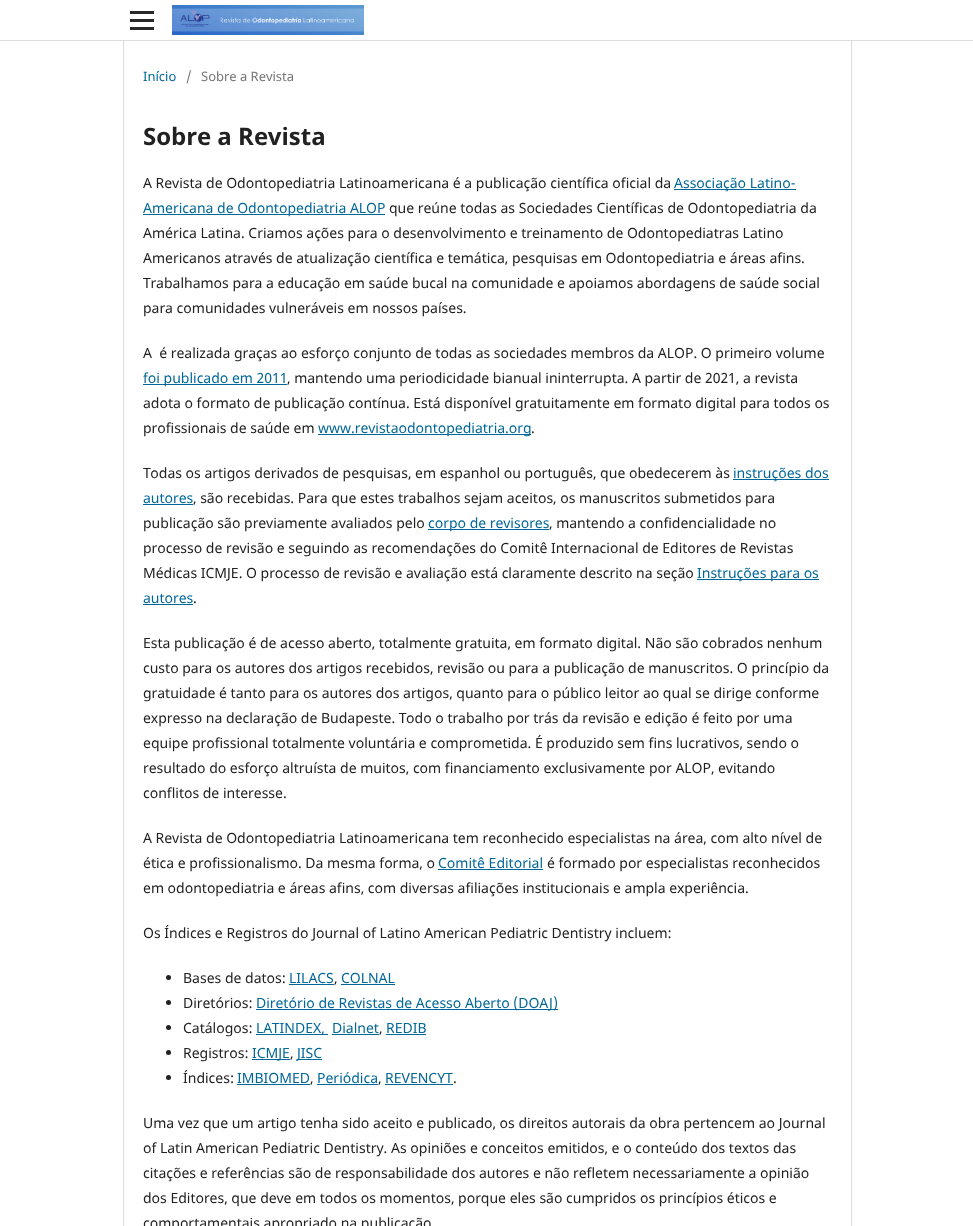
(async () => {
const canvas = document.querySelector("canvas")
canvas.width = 973
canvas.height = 1226
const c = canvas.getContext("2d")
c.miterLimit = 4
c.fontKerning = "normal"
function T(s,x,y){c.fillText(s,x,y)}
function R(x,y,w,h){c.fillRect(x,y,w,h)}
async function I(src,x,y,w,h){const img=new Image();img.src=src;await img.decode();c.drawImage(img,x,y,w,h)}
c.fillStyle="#fff"
R(0,0,973,1226)
c.fillStyle="#ddd"
R(0,40,973,1)
c.fillStyle="#292929"
R(130,27,24,3)
R(130,11,24,3)
R(130,19,24,3)
await I("1.png",172,5,192,30)
c.fillStyle="#ddd"
R(123,41,1,1185)
c.font="13px Noto Sans"
c.fillStyle="#006798"
T("Início",143,81)
c.fillStyle="#757575"
T("/",186,81)
T("Sobre a Revista",201,81)
c.font="bold 24px Noto Sans"
c.fillStyle="#212121"
T("Sobre a Revista",143,145)
c.font="14px Noto Sans"
T("A Revista de Odontopediatria Latinoamericana é a publicação científica oficial da",143,188)
c.fillStyle="#006798"
R(674,189,122,1)
T("Associação Latino-",674,188)
R(143,214,242,1)
T("Americana de Odontopediatria ALOP",143,213)
c.fillStyle="#212121"
T("que reúne todas as Sociedades Científicas de Odontopediatria da",389,213)
T("América Latina. Criamos ações para o desenvolvimento e treinamento de Odontopediatras Latino",143,238)
T("Americanos através de atualização científica e temática, pesquisas em Odontopediatria e áreas afins.",143,263)
T("Trabalhamos para a educação em saúde bucal na comunidade e apoiamos abordagens de saúde social",143,288)
T("para comunidades vulneráveis em nossos países.",143,313)
T("A  é realizada graças ao esforço conjunto de todas as sociedades membros da ALOP. O primeiro volume",143,358)
c.fillStyle="#006798"
R(143,384,144,1)
T("foi publicado em 2011",143,383)
c.fillStyle="#212121"
T(", mantendo uma periodicidade bianual ininterrupta. A partir de 2021, a revista",287,383)
T("adota o formato de publicação contínua. Está disponível gratuitamente em formato digital para todos os",143,408)
T("profissionais de saúde em",143,433)
c.fillStyle="#006798"
R(318,434,213,1)
T("www.revistaodontopediatria.org",318,433)
c.fillStyle="#212121"
T(".",531,433)
T("Todas os artigos derivados de pesquisas, em espanhol ou português, que obedecerem às",143,478)
c.fillStyle="#006798"
R(733,479,96,1)
T("instruções dos",733,478)
T("autores",143,503)
R(143,504,50,1)
c.fillStyle="#212121"
T(", são recebidas. Para que estes trabalhos sejam aceitos, os manuscritos submetidos para",193,503)
T("publicação são previamente avaliados pelo",143,528)
c.fillStyle="#006798"
R(428,529,121,1)
T("corpo de revisores",428,528)
c.fillStyle="#212121"
T(", mantendo a confidencialidade no",549,528)
T("processo de revisão e seguindo as recomendações do Comitê Internacional de Editores de Revistas",143,553)
T("Médicas ICMJE. O processo de revisão e avaliação está claramente descrito na seção",143,578)
c.fillStyle="#006798"
R(697,579,122,1)
T("Instruções para os",697,578)
T("autores",143,603)
R(143,604,50,1)
c.fillStyle="#212121"
T(".",193,603)
T("Esta publicação é de acesso aberto, totalmente gratuita, em formato digital. Não são cobrados nenhum",143,648)
T("custo para os autores dos artigos recebidos, revisão ou para a publicação de manuscritos. O princípio da",143,673)
T("gratuidade é tanto para os autores dos artigos, quanto para o público leitor ao qual se dirige conforme",143,698)
T("expresso na declaração de Budapeste. Todo o trabalho por trás da revisão e edição é feito por uma",143,723)
T("equipe profissional totalmente voluntária e comprometida. É produzido sem fins lucrativos, sendo o",143,748)
T("resultado do esforço altruísta de muitos, com financiamento exclusivamente por ALOP, evitando",143,773)
T("conflitos de interesse.",143,798)
T("A Revista de Odontopediatria Latinoamericana tem reconhecido especialistas na área, com alto nível de",143,843)
T("ética e profissionalismo. Da mesma forma, o",143,868)
c.fillStyle="#006798"
T("Comitê Editorial",438,868)
R(438,869,105,1)
c.fillStyle="#212121"
T("é formado por especialistas reconhecidos",547,868)
T("em odontopediatria e áreas afins, com diversas afiliações institucionais e ampla experiência.",143,893)
T("Os Índices e Registros do Journal of Latino American Pediatric Dentistry incluem:",143,938)
c.beginPath()
c.arc(168.5,977.5,2.5,0,7)
c.fill()
T("Bases de datos:",183,983)
c.fillStyle="#006798"
T("LILACS",289,983)
R(289,984,45,1)
T("COLNAL",341,983)
R(341,984,54,1)
c.fillStyle="#212121"
T(",",334,983)
c.beginPath()
c.arc(168.5,1002.5,2.5,0,7)
c.fill()
T("Diretórios:",183,1008)
c.fillStyle="#006798"
R(256,1009,302,1)
T("Diretório de Revistas de Acesso Aberto (DOAJ)",256,1008)
c.fillStyle="#212121"
c.beginPath()
c.arc(168.5,1027.5,2.5,0,7)
c.fill()
T("Catálogos:",183,1033)
c.fillStyle="#006798"
R(256,1034,72,1)
T("LATINDEX,",256,1033)
T("Dialnet",332,1033)
R(332,1034,47,1)
T("REDIB",386,1033)
R(386,1034,40,1)
c.fillStyle="#212121"
T(",",379,1033)
c.beginPath()
c.arc(168.5,1052.5,2.5,0,7)
c.fill()
T("Registros:",183,1058)
c.fillStyle="#006798"
R(252,1059,38,1)
T("ICMJE",252,1058)
R(297,1059,25,1)
T("JISC",297,1058)
c.fillStyle="#212121"
T(",",290,1058)
c.beginPath()
c.arc(168.5,1077.5,2.5,0,7)
c.fill()
T("Índices:",183,1083)
c.fillStyle="#006798"
T("IMBIOMED",237,1083)
R(237,1084,73,1)
T("Periódica",317,1083)
R(317,1084,61,1)
T("REVENCYT",385,1083)
R(385,1084,68,1)
c.fillStyle="#212121"
T(",",310,1083)
T(",",378,1083)
T(".",453,1083)
T("Uma vez que um artigo tenha sido aceito e publicado, os direitos autorais da obra pertencem ao Journal",143,1128)
T("of Latin American Pediatric Dentistry. As opiniões e conceitos emitidos, e o conteúdo dos textos das",143,1153)
T("citações e referências são de responsabilidade dos autores e não refletem necessariamente a opinião",143,1178)
T("dos Editores, que deve em todos os momentos, porque eles são cumpridos os princípios éticos e",143,1203)
T("comportamentais apropriado na publicação",143,1228)
c.fillStyle="#ddd"
R(851,41,1,1185)
})()
